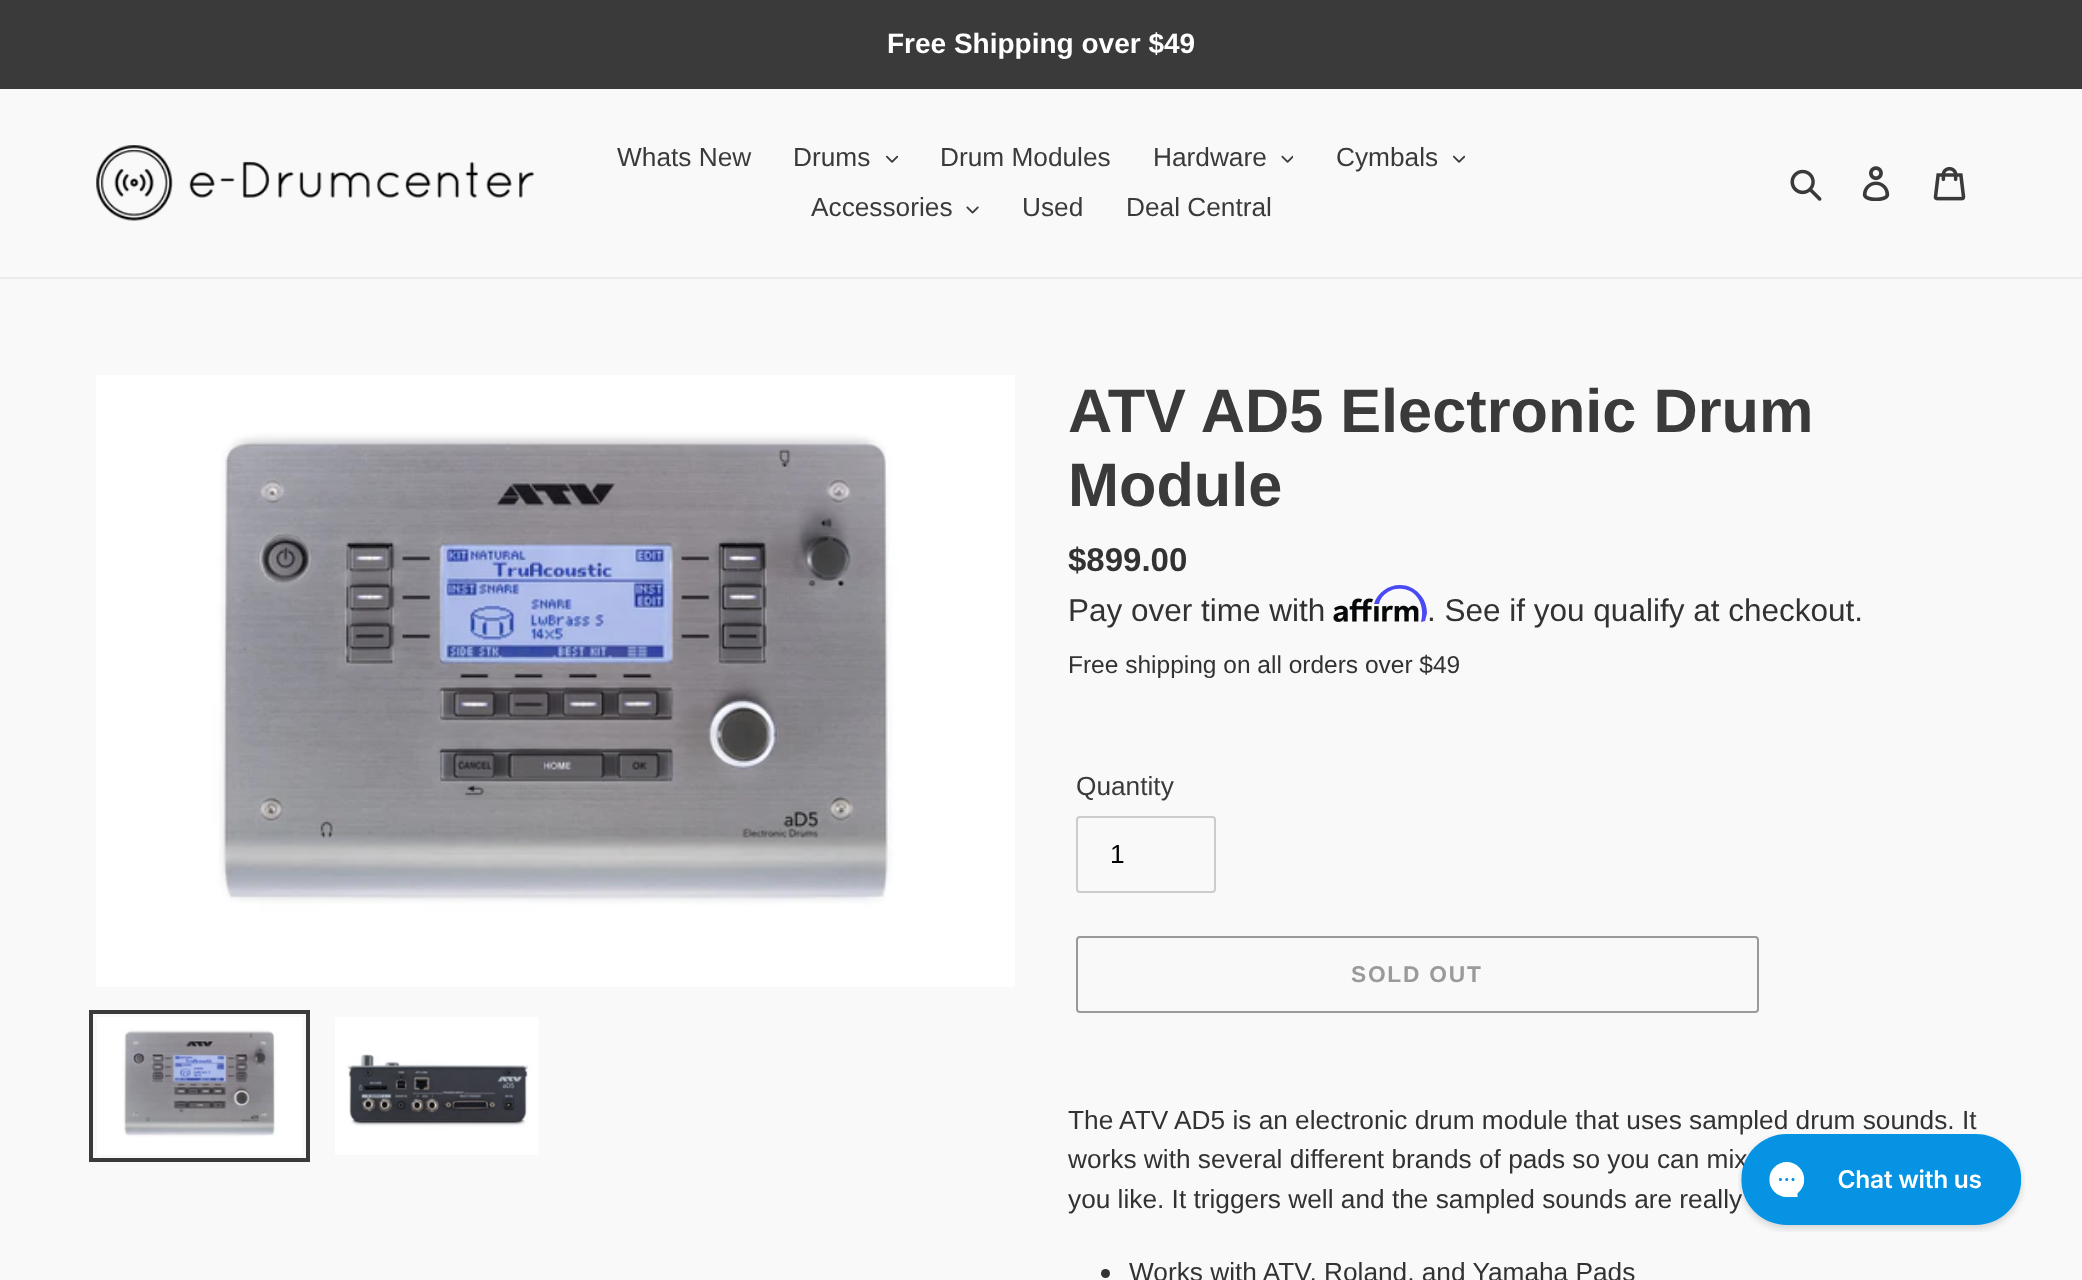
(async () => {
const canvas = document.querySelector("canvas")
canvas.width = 2082
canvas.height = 1280
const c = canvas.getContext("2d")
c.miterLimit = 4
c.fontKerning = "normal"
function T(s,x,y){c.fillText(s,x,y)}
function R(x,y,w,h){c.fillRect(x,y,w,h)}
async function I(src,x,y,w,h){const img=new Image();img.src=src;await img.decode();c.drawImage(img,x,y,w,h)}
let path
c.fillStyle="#f9f9f9"
R(0,0,2082,1280)
c.fillStyle="#3a3a3a"
R(0,0,2082,89)
c.font="bold 28px Liberation Sans"
c.fillStyle="#fff"
T("Free Shipping over $49",887,53)
c.fillStyle="#ebebeb"
R(0,277,2082,2)
await I("1.png",96,145,438,76)
c.font="26.25px Liberation Sans"
c.fillStyle="#3a3a3a"
T("Whats New",617,166)
T("Drums",793,166)
await I("2.png",886,155,12,8)
T("Drum Modules",940,166)
T("Hardware",1153,166)
await I("3.png",1281,155,12,8)
T("Cymbals",1336,166)
await I("2.png",1453,155,12,8)
T("Accessories",811,216)
await I("4.png",966,206,13,8)
T("Used",1022,216)
T("Deal Central",1126,216)
await I("5.png",1790,169,32,32)
await I("6.png",1862,166,28,35)
await I("7.png",1933,166,33,35)
await I("8.png",96,375,919,612)
c.strokeStyle="#3a3a3a"
c.lineWidth=4
c.strokeRect(91,1012,217,148)
await I("9.png",97,1017,206,138)
await I("10.png",335,1017,204,138)
c.font="bold 61.25px Liberation Sans"
T("ATV AD5 Electronic Drum",1068,432)
T("Module",1068,506)
c.font="bold 33px Liberation Sans"
c.fillStyle="#333232"
T("$899.00",1068,571)
c.font="31.5px Liberation Sans"
T("Pay over time with",1068,621)
await I("11.png",1333,598,86,24)
c.fillStyle="#4a4af4"
path = new Path2D("M1400 585c-12 0-23 8-26 19h5c1-5 4-9 9-12c4-3 10-4 15-3c16 2 22 19 18 33l4-1l2-8c0-15-12-28-27-28z")
c.fill(path)
c.fillStyle="#333232"
T(". See if you qualify at checkout.",1427,621)
c.font="24.5px Liberation Sans"
T("Free shipping on all orders over $49",1068,673)
c.font="26.25px Liberation Sans"
c.fillStyle="#3a3a3a"
T("Quantity",1076,795)
c.beginPath()
c.roundRect(1077,817,138,75,3)
c.strokeStyle="#ccc"
c.lineWidth=2
c.stroke()
c.fillStyle="#000"
T("1",1110,863)
c.beginPath()
c.roundRect(1077,937,681,75,3)
c.strokeStyle="#9a9a9a"
c.stroke()
c.letterSpacing="1.75px"
c.font="bold 22.75px Liberation Sans"
c.fillStyle="#9a9a9a"
T("SOLD OUT",1351,982)
c.letterSpacing="0px"
c.font="26.25px Liberation Sans"
c.fillStyle="#333232"
T("The ATV AD5 is an electronic drum module that uses sampled drum sounds. It",1068,1129)
T("works with several different brands of pads so you can mix",1068,1168)
T("you like. It triggers well and the sampled sounds are really",1068,1208)
c.beginPath()
c.arc(1105.5,1273.5,4.5,0,7)
c.fill()
T("Works with ATV, Roland, and Yamaha Pads",1129,1281)
await I("12.png",1738,1134,287,98)
})()
